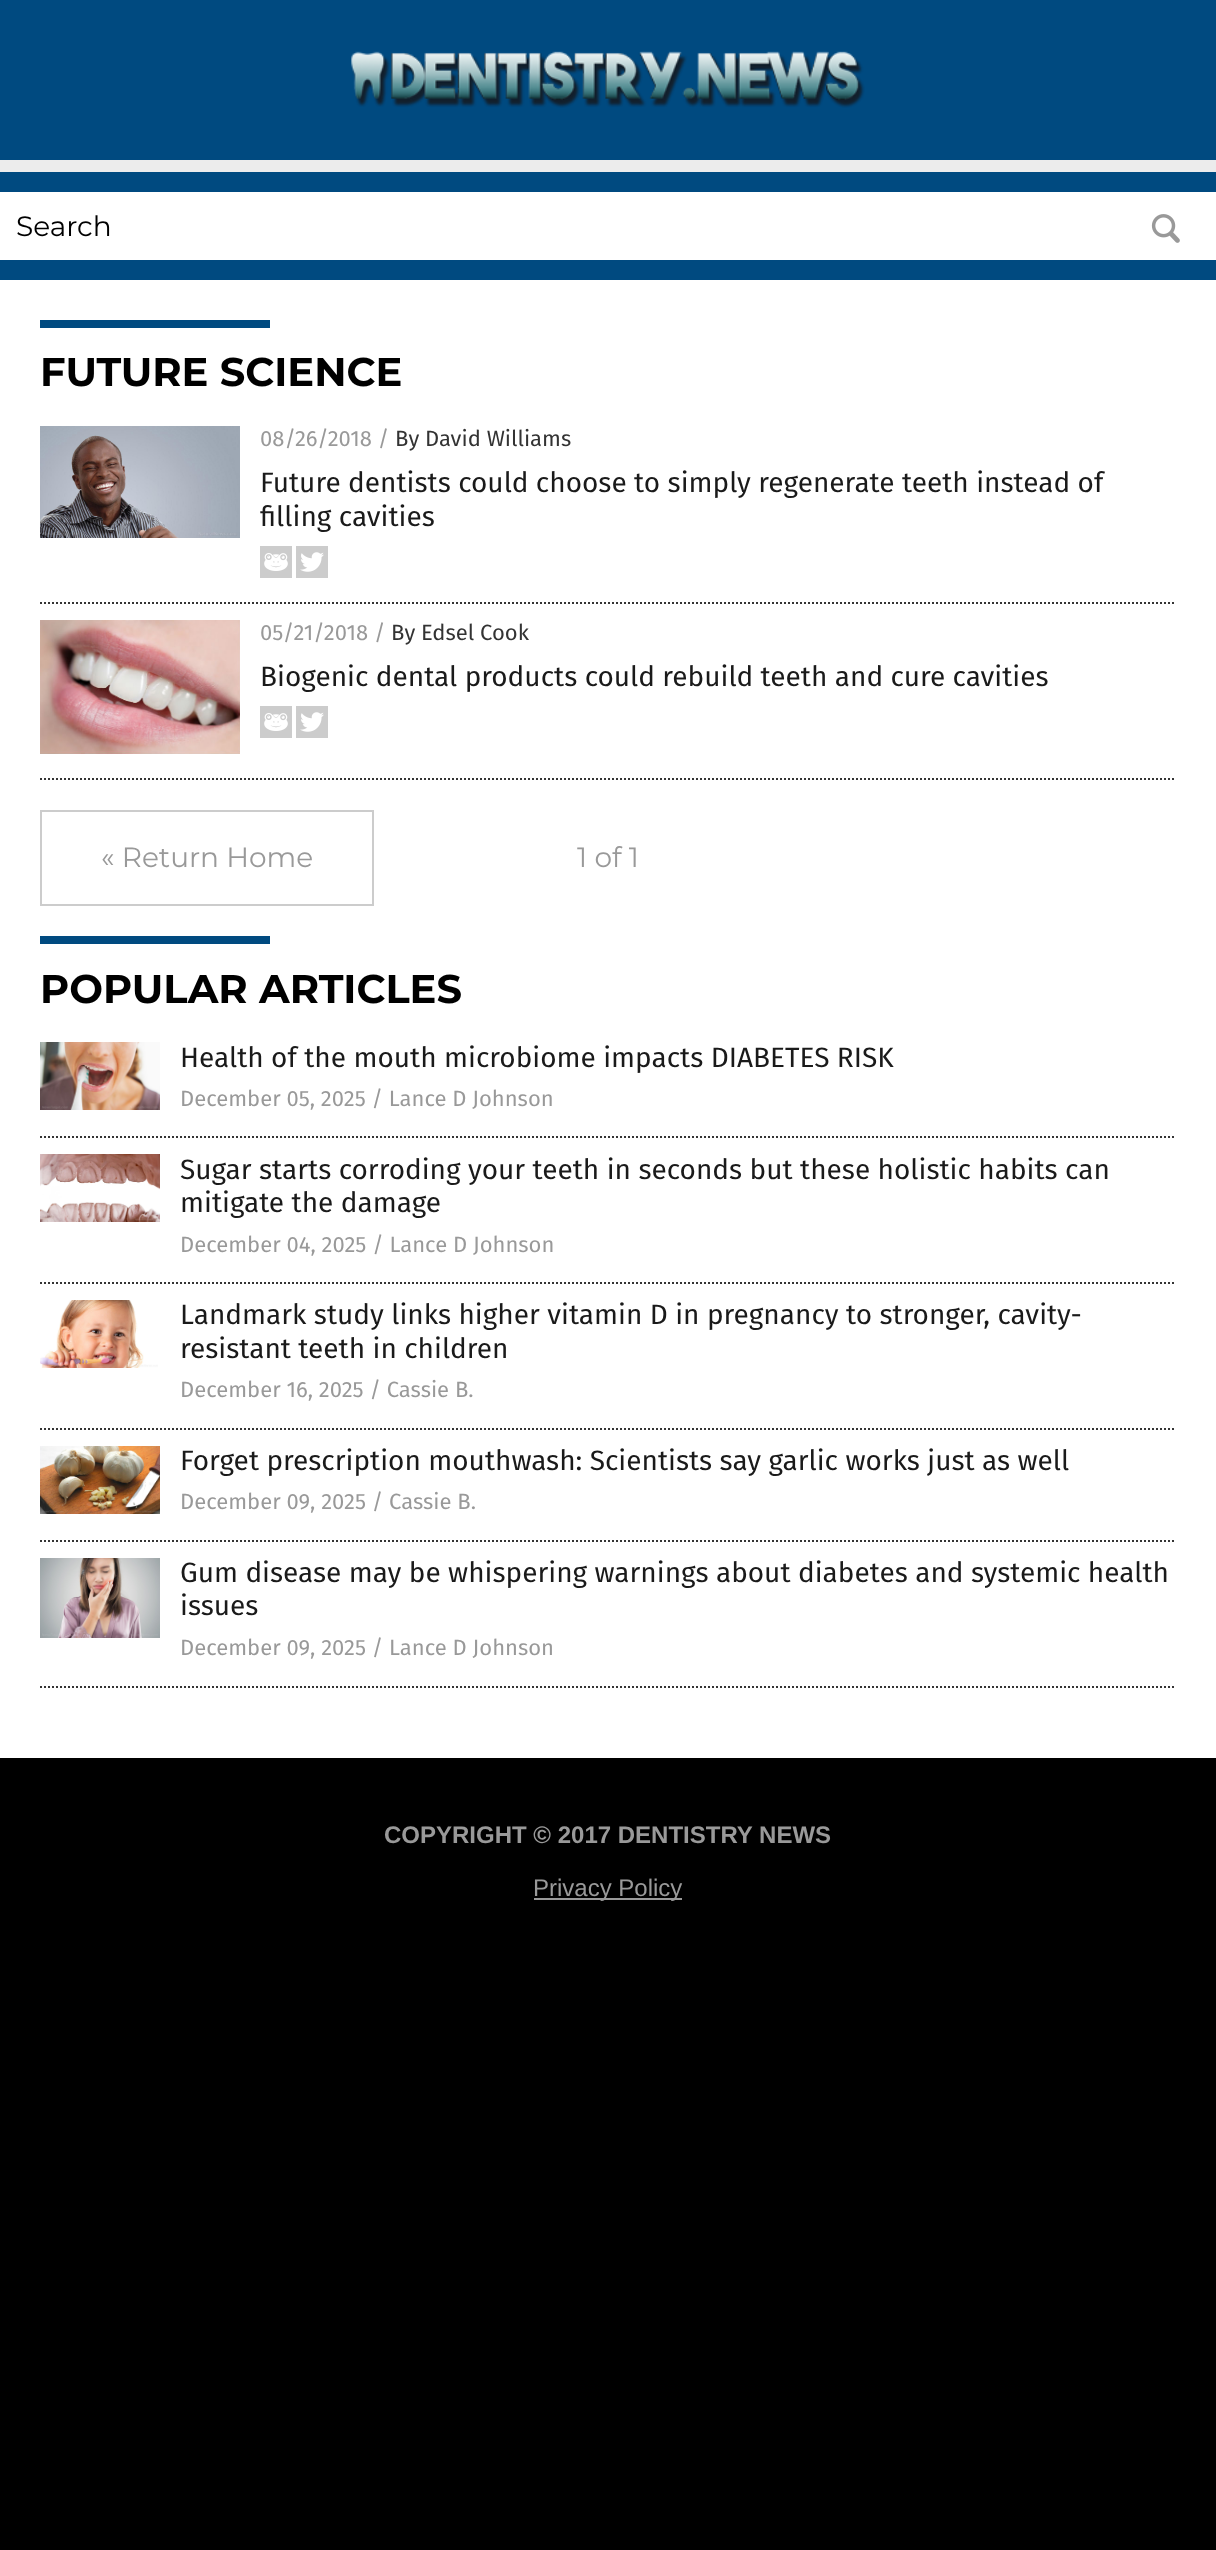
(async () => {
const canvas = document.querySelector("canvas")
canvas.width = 1216
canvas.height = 2550
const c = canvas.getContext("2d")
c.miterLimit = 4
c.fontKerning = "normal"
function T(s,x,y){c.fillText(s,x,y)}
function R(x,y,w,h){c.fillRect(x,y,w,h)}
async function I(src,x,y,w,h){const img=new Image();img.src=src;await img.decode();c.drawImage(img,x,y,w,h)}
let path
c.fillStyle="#000"
R(0,0,1216,2550)
c.fillStyle="#004a80"
R(0,0,1216,280)
await I("1.png",351,51,514,57)
c.fillStyle="#ececec"
R(0,160,1216,12)
c.fillStyle="#fff"
R(0,192,1216,68)
c.font="28px Montserrat"
c.fillStyle="#000"
T("Search",16,236)
await I("2.png",1151,214,29,29)
c.fillStyle="#fff"
R(0,280,1216,1478)
c.fillStyle="#004a80"
R(40,320,230,8)
c.font="bold 40px Montserrat"
c.fillStyle="#000"
T("FUTURE SCIENCE",40,386)
path = new Path2D("M40 603h1136")
c.strokeStyle="#343434"
c.lineWidth=2
c.setLineDash([2,2])
c.stroke(path)
await I("3.png",40,426,200,112)
c.font="22px Fira Sans"
c.fillStyle="#999"
T("08/26/2018 /",260,446)
c.fillStyle="#333"
T("By David Williams",395,446)
c.font="28px Fira Sans"
c.fillStyle="#1a1a1a"
T("Future dentists could choose to simply regenerate teeth instead of",260,492)
T("filling cavities",260,526)
await I("4.png",260,546,32,32)
await I("5.png",296,546,32,32)
path = new Path2D("M40 779h1136")
c.stroke(path)
await I("6.png",40,620,200,134)
c.font="22px Fira Sans"
c.fillStyle="#999"
T("05/21/2018 /",260,640)
c.fillStyle="#333"
T("By Edsel Cook",391,640)
c.font="28px Fira Sans"
c.fillStyle="#1a1a1a"
T("Biogenic dental products could rebuild teeth and cure cavities",260,686)
await I("4.png",260,706,32,32)
await I("5.png",296,706,32,32)
c.strokeStyle="#ccc"
c.setLineDash([])
c.strokeRect(41,811,332,94)
c.font="28px Montserrat"
c.fillStyle="#999"
T("« Return Home",101,867)
T("1 of 1",577,867)
c.fillStyle="#004a80"
R(40,936,230,8)
c.font="bold 40px Montserrat"
c.fillStyle="#000"
T("POPULAR ARTICLES",40,1003)
path = new Path2D("M40 1137h1136")
c.strokeStyle="#343434"
c.setLineDash([2,2])
c.stroke(path)
await I("7.png",40,1042,120,68)
c.font="28px Fira Sans"
c.fillStyle="#1a1a1a"
T("Health of the mouth microbiome impacts DIABETES RISK",180,1067)
c.font="22px Fira Sans"
c.fillStyle="#999"
T("December 05, 2025 / Lance D Johnson",180,1106)
path = new Path2D("M40 1283h1136")
c.stroke(path)
await I("8.png",40,1154,120,68)
c.font="28px Fira Sans"
c.fillStyle="#1a1a1a"
T("Sugar starts corroding your teeth in seconds but these holistic habits can",180,1179)
T("mitigate the damage",180,1212)
c.font="22px Fira Sans"
c.fillStyle="#999"
T("December 04, 2025 / Lance D Johnson",180,1252)
path = new Path2D("M40 1429h1136")
c.stroke(path)
await I("9.png",40,1300,118,68)
c.font="28px Fira Sans"
c.fillStyle="#1a1a1a"
T("Landmark study links higher vitamin D in pregnancy to stronger, cavity-",180,1324)
T("resistant teeth in children",180,1358)
c.font="22px Fira Sans"
c.fillStyle="#999"
T("December 16, 2025 / Cassie B.",180,1397)
path = new Path2D("M40 1541h1136")
c.stroke(path)
await I("10.png",40,1446,120,68)
c.font="28px Fira Sans"
c.fillStyle="#1a1a1a"
T("Forget prescription mouthwash: Scientists say garlic works just as well",180,1470)
c.font="22px Fira Sans"
c.fillStyle="#999"
T("December 09, 2025 / Cassie B.",180,1509)
path = new Path2D("M40 1687h1136")
c.stroke(path)
await I("11.png",40,1558,120,80)
c.font="28px Fira Sans"
c.fillStyle="#1a1a1a"
T("Gum disease may be whispering warnings about diabetes and systemic health",180,1582)
T("issues",180,1615)
c.font="22px Fira Sans"
c.fillStyle="#999"
T("December 09, 2025 / Lance D Johnson",180,1655)
c.font="bold 24px Liberation Sans"
T("COPYRIGHT © 2017 DENTISTRY NEWS",384,1843)
R(534,1898,148,2)
c.font="24px Liberation Sans"
T("Privacy Policy",533,1896)
})()
